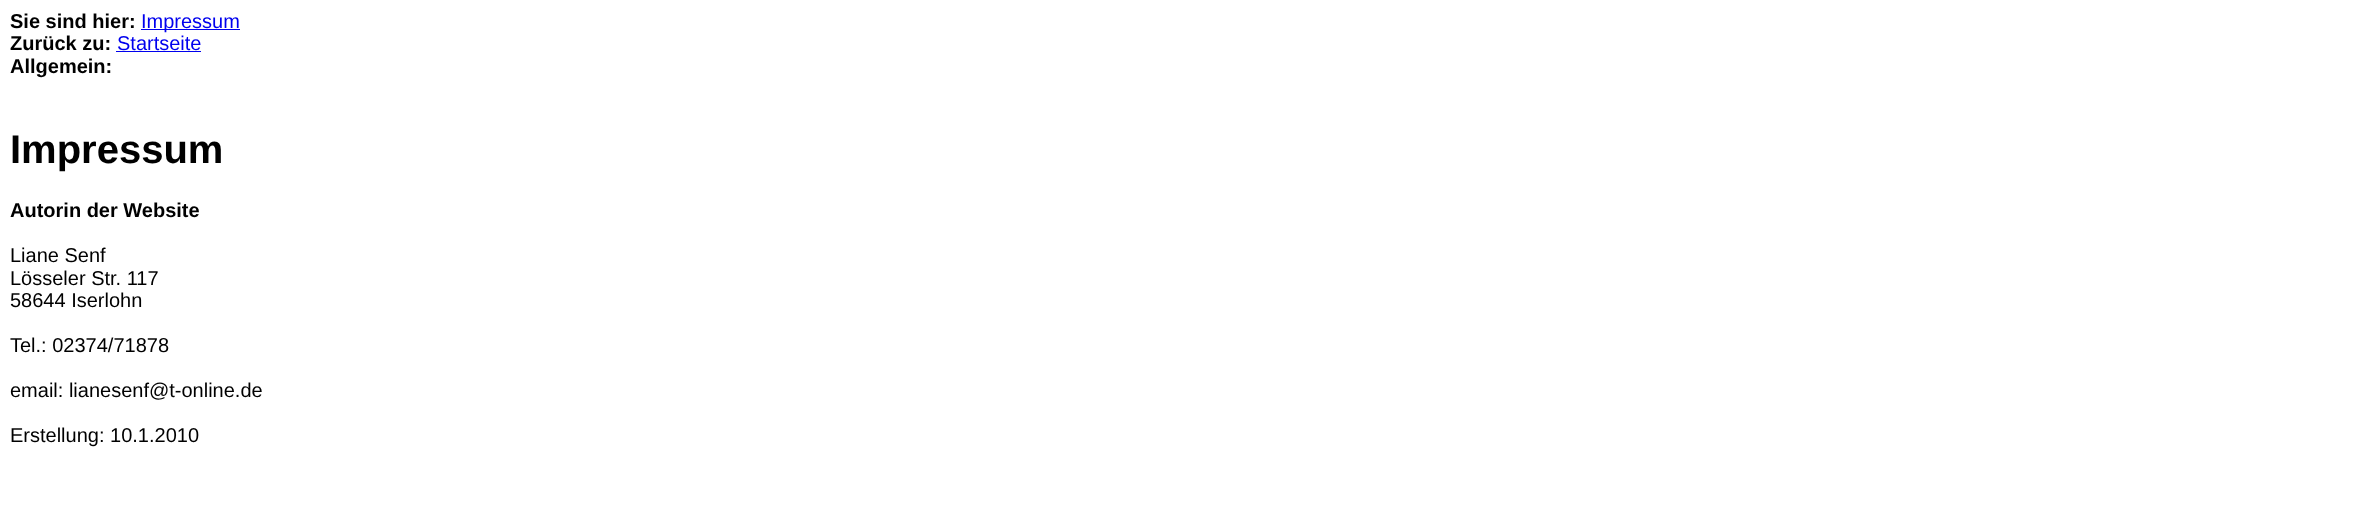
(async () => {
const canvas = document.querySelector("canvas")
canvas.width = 2356
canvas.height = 530
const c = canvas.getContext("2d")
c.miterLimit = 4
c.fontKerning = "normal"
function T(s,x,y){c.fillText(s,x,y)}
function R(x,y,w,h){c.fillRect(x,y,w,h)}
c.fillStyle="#fff"
R(0,0,2356,530)
c.font="bold 20px Liberation Sans"
c.fillStyle="#000"
T("Sie sind hier:",10,28)
c.fillStyle="#00e"
R(141,29,99,1)
c.font="20px Liberation Sans"
T("Impressum",141,28)
c.font="bold 20px Liberation Sans"
c.fillStyle="#000"
T("Zurück zu:",10,50)
c.font="20px Liberation Sans"
c.fillStyle="#00e"
T("Startseite",117,50)
R(116,51,85,1)
c.font="bold 20px Liberation Sans"
c.fillStyle="#000"
T("Allgemein:",10,73)
c.font="bold 40px Liberation Sans"
T("Impressum",10,163)
c.font="bold 20px Liberation Sans"
T("Autorin der Website",10,217)
c.font="20px Liberation Sans"
T("Liane Senf",10,262)
T("Lösseler Str. 117",10,285)
T("58644 Iserlohn",10,307)
T("Tel.: 02374/71878",10,352)
T("email: lianesenf@t-online.de",10,397)
T("Erstellung: 10.1.2010",10,442)
})()
